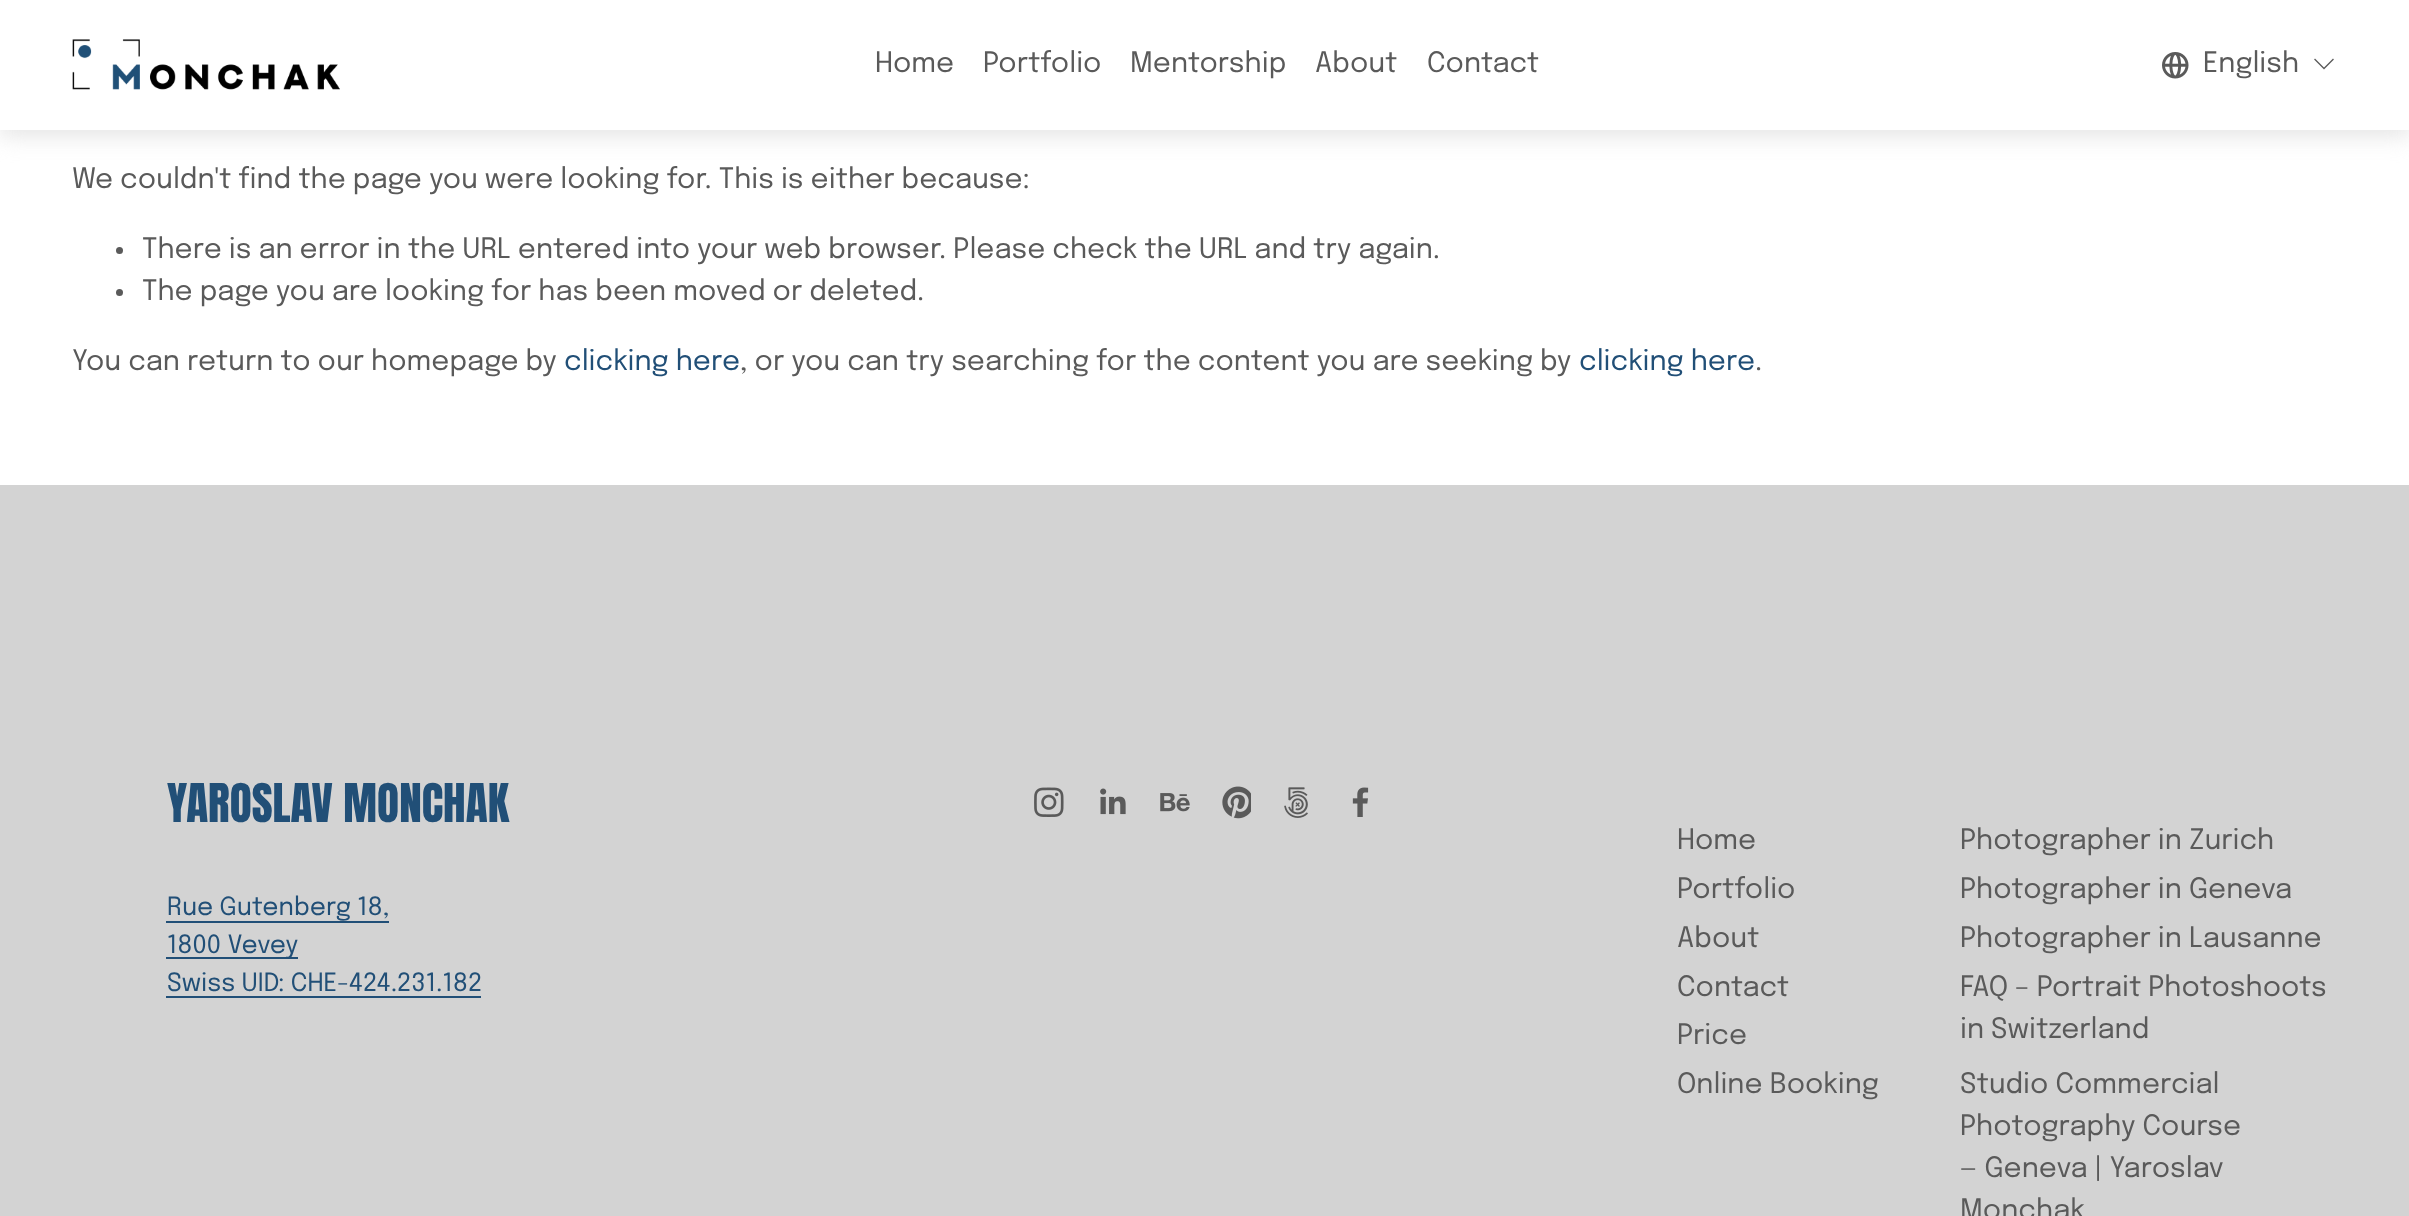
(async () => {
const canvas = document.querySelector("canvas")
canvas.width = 2409
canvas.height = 1216
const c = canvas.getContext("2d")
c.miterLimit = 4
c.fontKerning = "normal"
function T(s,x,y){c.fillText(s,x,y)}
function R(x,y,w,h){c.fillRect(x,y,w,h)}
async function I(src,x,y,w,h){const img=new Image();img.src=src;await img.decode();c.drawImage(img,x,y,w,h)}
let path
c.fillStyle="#fff"
R(0,0,2409,1216)
c.save()
path = new Path2D("M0 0h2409v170h-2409zm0 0h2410v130h-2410z")
c.clip(path,"evenodd")
c.fillStyle="#e6e6e6"
c.filter="blur(10.5px)"
c.beginPath()
c.rect(0,7,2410,130)
c.fill()
c.filter="none"
c.restore()
await I("1.png",72,39,268,51)
c.font="28px Epilogue"
c.fillStyle="#5a5a5a"
T("Home",875,72)
T("Portfolio",983,72)
T("Mentorship",1130,72)
T("About",1315,72)
T("Contact",1427,72)
await I("2.png",2162,52,27,27)
T("English",2203,72)
path = new Path2D("M2333 59.5l-9 9l-9-9")
c.strokeStyle="#5a5a5a"
c.lineWidth=1.3
c.lineCap="square"
c.stroke(path)
c.fillStyle="#ffffffc9"
R(0,129,2409,1)
c.fillStyle="#5a5a5a"
T("We couldn't find the page you were looking for. This is either because:",72,188)
c.beginPath()
c.arc(119.5,250.5,3.5,0,7)
c.fill()
T("There is an error in the URL entered into your web browser. Please check the URL and try again.",142,258)
c.beginPath()
c.arc(119.5,292.5,3.5,0,7)
c.fill()
T("The page you are looking for has been moved or deleted.",142,300)
T("You can return to our homepage by",72,370)
c.fillStyle="#214f77"
T("clicking here",564,370)
c.fillStyle="#5a5a5a"
T(", or you can try searching for the content you are seeking by",740,370)
c.fillStyle="#214f77"
T("clicking here",1579,370)
c.fillStyle="#5a5a5a"
T(".",1755,370)
c.fillStyle="#d3d3d3"
R(0,485,2409,731)
c.font="45.25px Anton"
c.fillStyle="#214f77"
T("YAROSLAV MONCHAK",167,822)
c.font="25.1px Epilogue"
T("Rue Gutenberg 18,",167,915)
R(166,921,223,2)
R(166,957,132,2)
T("1800 Vevey",167,953)
T("Swiss UID: CHE-424.231.182",167,991)
R(166,996,315,2)
await I("3.png",1034,787,30,30)
await I("4.png",1100,788,26,27)
await I("5.png",1160,793,30,19)
await I("6.png",1222,786,29,33)
await I("7.png",1284,787,24,31)
await I("8.png",1352,787,17,30)
c.font="28px Epilogue"
c.fillStyle="#5a5a5a"
T("Home",1677,849)
T("Photographer in Zurich",1960,849)
T("Portfolio",1677,898)
T("Photographer in Geneva",1960,898)
T("About",1677,947)
T("Photographer in Lausanne",1960,947)
T("Contact",1677,996)
T("FAQ – Portrait Photoshoots",1960,996)
T("in Switzerland",1960,1038)
T("Price",1677,1044)
T("Online Booking",1677,1093)
T("Studio Commercial",1960,1093)
T("Photography Course",1960,1135)
T("— Geneva | Yaroslav",1960,1177)
T("Monchak",1960,1219)
})()
